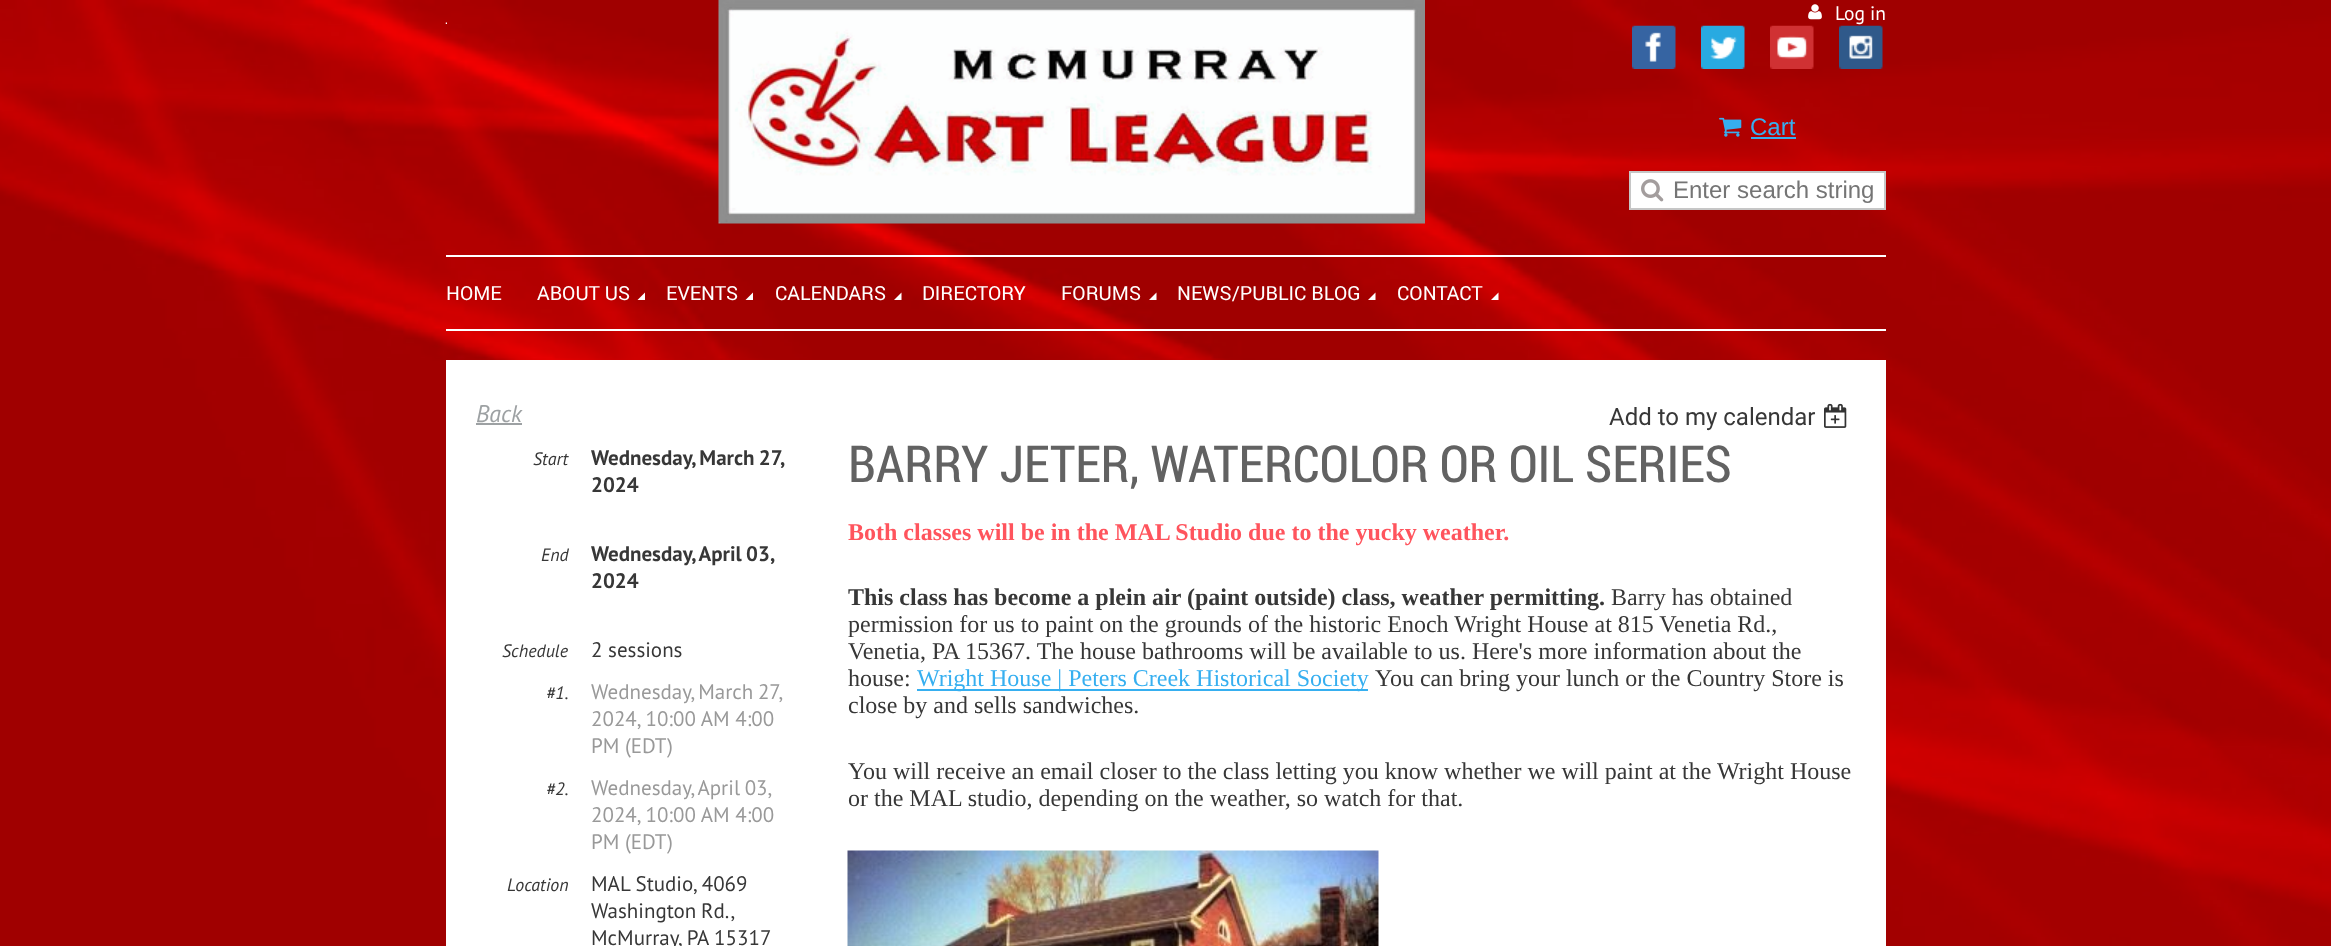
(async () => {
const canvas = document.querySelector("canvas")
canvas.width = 2331
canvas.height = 946
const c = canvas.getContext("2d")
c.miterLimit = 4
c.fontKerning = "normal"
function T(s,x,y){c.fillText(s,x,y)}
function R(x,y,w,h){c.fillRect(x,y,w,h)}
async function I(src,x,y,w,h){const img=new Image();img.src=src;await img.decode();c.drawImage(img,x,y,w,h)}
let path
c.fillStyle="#fff"
R(0,0,2331,946)
await I("1.png",0,0,2331,946)
await I("2.png",445,22,2,2)
await I("3.png",718,0,707,224)
await I("4.png",1808,4,14,16)
c.font="19.5px PT Sans"
T("Log in",1835,20)
await I("5.png",1632,25,44,44)
await I("6.png",1701,25,44,44)
await I("7.png",1770,25,44,44)
await I("8.png",1839,25,44,44)
await I("9.png",1719,117,23,20)
c.font="24px Liberation Sans"
c.fillStyle="#36aff0"
T("Cart",1750,135)
R(1751,137,45,2)
c.fillStyle="#fff"
c.beginPath()
c.rect(1630,172,255,37)
c.fill()
c.strokeStyle="#c6c6c6"
c.lineWidth=2
c.stroke()
await I("10.png",1641,179,23,23)
c.fillStyle="#757575"
T("Enter search string",1673,198)
c.fillStyle="#fff"
R(446,255,1440,2)
R(446,329,1440,2)
c.font="19.5px Roboto"
T("HOME",446,300)
T("ABOUT US",537,300)
path = new Path2D("M645 300h-7.5l7.5-7.5z")
c.fill(path)
T("EVENTS",666,300)
path = new Path2D("M753 300h-7.5l7.5-7.5z")
c.fill(path)
T("CALENDARS",775,300)
path = new Path2D("M901.5 300h-7.5l7.5-7.5z")
c.fill(path)
T("DIRECTORY",922,300)
T("FORUMS",1061,300)
path = new Path2D("M1156.5 300h-7.5l7.5-7.5z")
c.fill(path)
T("NEWS/PUBLIC BLOG",1177,300)
path = new Path2D("M1375.5 300h-7.5l7.5-7.5z")
c.fill(path)
T("CONTACT",1397,300)
path = new Path2D("M1498.5 300h-7.5l7.5-7.5z")
c.fill(path)
R(446,360,1440,586)
c.font="italic 24px PT Sans"
c.fillStyle="#9da1a3"
T("Back",476,422)
R(476,423,46,2)
c.font="24px 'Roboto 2'"
c.fillStyle="#373737"
T("Add to my calendar",1609,425)
await I("11.png",1824,403,23,25)
c.font="51px Roboto Condensed"
c.fillStyle="#626262"
T("BARRY JETER, WATERCOLOR OR OIL SERIES",848,482)
c.font="italic 18px PT Sans"
c.fillStyle="#373737"
T("Start",533,465)
c.wordSpacing="-1px"
c.font="bold 21px PT Sans"
T("Wednesday, March 27,",591,465)
c.wordSpacing="0px"
T("2024",591,492)
c.font="italic 18px PT Sans"
T("End",541,561)
c.wordSpacing="-1px"
c.font="bold 21px PT Sans"
T("Wednesday, April 03,",591,561)
c.wordSpacing="0px"
T("2024",591,588)
c.font="italic 18px PT Sans"
T("Schedule",502,657)
c.font="21px PT Sans"
T("2 sessions",591,657)
c.font="italic 18px PT Sans"
T("#1.",546,699)
c.wordSpacing="-1px"
c.font="21px PT Sans"
c.fillStyle="#999"
T("Wednesday, March 27,",591,699)
c.wordSpacing="0px"
T("2024, 10:00 AM 4:00",591,726)
T("PM (EDT)",591,753)
c.font="italic 18px PT Sans"
c.fillStyle="#373737"
T("#2.",546,795)
c.wordSpacing="-1px"
c.font="21px PT Sans"
c.fillStyle="#999"
T("Wednesday, April 03,",591,795)
c.wordSpacing="0px"
T("2024, 10:00 AM 4:00",591,822)
T("PM (EDT)",591,849)
c.font="italic 18px PT Sans"
c.fillStyle="#373737"
T("Location",507,891)
c.font="21px PT Sans"
T("MAL Studio, 4069",591,891)
c.wordSpacing="-1px"
T("Washington Rd.,",591,918)
c.wordSpacing="0px"
T("McMurray, PA 15317",591,945)
c.font="bold 24px Liberation Serif"
c.fillStyle="#ff545d"
T("Both classes will be in the MAL Studio due to the yucky weather.",848,540)
c.fillStyle="#373737"
T("This class has become a plein air (paint outside) class, weather permitting.",848,605)
c.font="24px Liberation Serif"
T("Barry has obtained",1611,605)
T("permission for us to paint on the grounds of the historic Enoch Wright House at 815 Venetia Rd.,",848,632)
T("Venetia, PA 15367. The house bathrooms will be available to us. Here's more information about the",848,659)
T("house:",848,686)
c.fillStyle="#36aff0"
R(917,689,451,2)
T("Wright House | Peters Creek Historical Society",917,686)
c.fillStyle="#373737"
T("You can bring your lunch or the Country Store is",1375,686)
T("close by and sells sandwiches.",848,713)
T("You will receive an email closer to the class letting you know whether we will paint at the Wright House",848,779)
T("or the MAL studio, depending on the weather, so watch for that.",848,806)
await I("12.png",847,850,532,96)
})()
